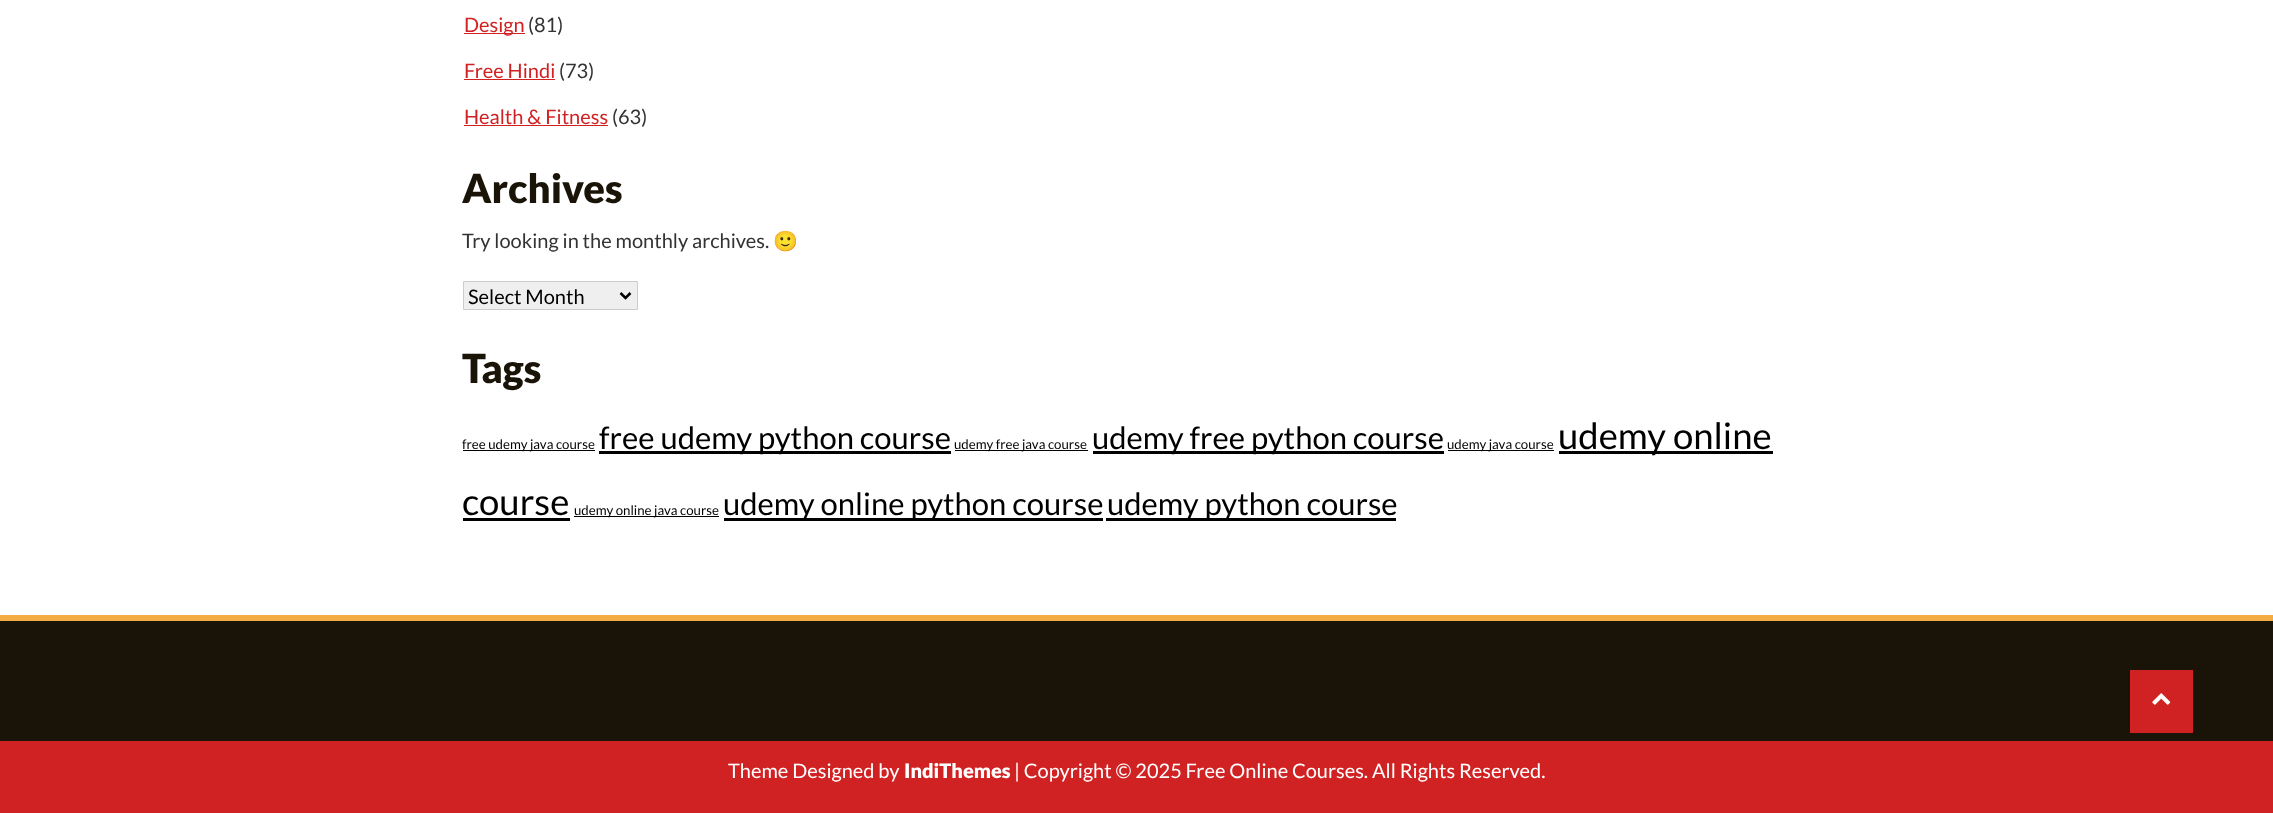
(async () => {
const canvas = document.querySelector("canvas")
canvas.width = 2273
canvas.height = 813
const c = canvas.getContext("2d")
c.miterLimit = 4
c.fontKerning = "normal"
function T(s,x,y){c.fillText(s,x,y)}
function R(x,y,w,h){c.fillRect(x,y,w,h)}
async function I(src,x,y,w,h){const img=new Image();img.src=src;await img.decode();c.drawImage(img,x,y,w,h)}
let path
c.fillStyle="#fff"
R(0,0,2273,813)
c.fillStyle="#d12223"
R(464,33,61,1)
c.font="20px Lato"
T("Design",464,32)
c.fillStyle="#333"
T("(81)",528,32)
c.fillStyle="#d12223"
T("Free Hindi",464,78)
R(464,79,91,1)
c.fillStyle="#333"
T("(73)",559,78)
c.fillStyle="#d12223"
T("Health & Fitness",464,124)
R(464,125,144,1)
c.fillStyle="#333"
T("(63)",612,124)
c.font="900 40px Lato"
c.fillStyle="#191308"
T("Archives",462,203)
c.font="20px Lato"
c.fillStyle="#333"
T("Try looking in the monthly archives.",462,248)
c.font="20px Noto Color Emoji"
T("🙂",773,248)
c.fillStyle="#efefef"
c.beginPath()
c.rect(463.5,281.5,174,28)
c.fill()
c.strokeStyle="#ccc"
c.stroke()
path = new Path2D("M620.5 293l5 5l5-5")
c.strokeStyle="#000"
c.lineWidth=2.5
c.stroke(path)
c.font="20px Lato"
c.fillStyle="#000"
T("Select Month",468,304)
c.font="900 40px Lato"
c.fillStyle="#191308"
T("Tags",462,383)
c.fillStyle="#000"
R(463,450,132,1)
c.font="13.25px Lato"
T("free udemy java course",462,449)
R(599,451,352,3)
c.font="31px Lato"
T("free udemy python course",599,449)
R(955,450,133,1)
c.font="13.25px Lato"
T("udemy free java course",954,449)
R(1093,451,351,3)
c.font="31px Lato"
T("udemy free python course",1092,449)
R(1448,450,106,1)
c.font="13.25px Lato"
T("udemy java course",1447,449)
R(1559,451,214,3)
c.font="36.5px Lato"
T("udemy online",1558,449)
T("course",462,515)
R(463,518,107,3)
R(574,516,145,1)
c.font="13.25px Lato"
T("udemy online java course",574,515)
R(724,518,379,3)
c.font="31px Lato"
T("udemy online python course",723,515)
R(1106,518,290,3)
T("udemy python course",1107,515)
c.fillStyle="#191308"
R(0,621,2273,120)
c.fillStyle="#f4ac45"
R(0,615,2273,6)
c.fillStyle="#d12223"
R(0,741,2273,72)
c.font="20px Lato"
c.fillStyle="#fff"
T("Theme Designed by",728,778)
c.font="900 20px Lato"
T("IndiThemes",904,778)
c.font="20px Lato"
T("| Copyright © 2025 Free Online Courses. All Rights Reserved.",1014,778)
c.fillStyle="#d12223"
R(2130,670,63,63)
await I("1.png",2152,693,19,12)
})()
